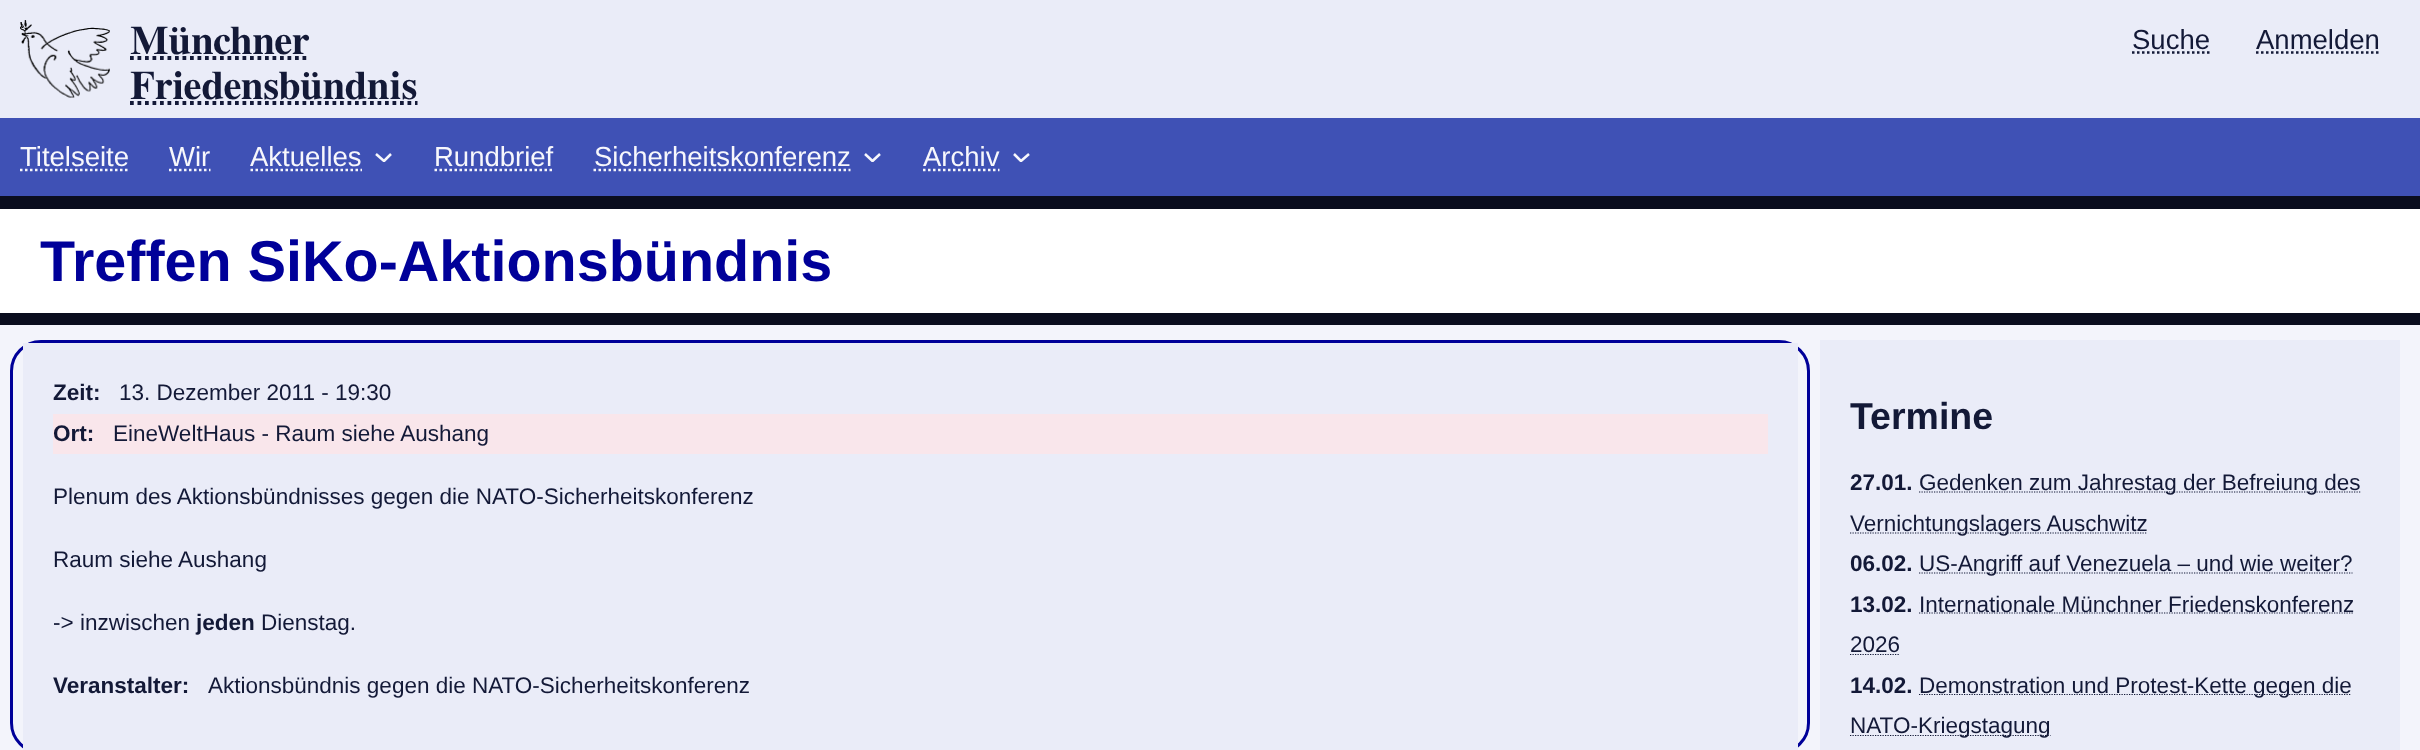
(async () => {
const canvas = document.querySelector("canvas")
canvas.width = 2420
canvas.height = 750
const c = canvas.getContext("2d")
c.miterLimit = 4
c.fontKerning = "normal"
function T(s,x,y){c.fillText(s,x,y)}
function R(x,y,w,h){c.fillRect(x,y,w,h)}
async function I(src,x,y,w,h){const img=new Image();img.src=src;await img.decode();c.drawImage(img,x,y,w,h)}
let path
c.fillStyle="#eaecf8"
R(0,0,2420,750)
await I("1.png",20,20,90,78)
c.font="bold 40.5px FreeSerif"
c.fillStyle="#131937"
T("Münchner",130,54)
path = new Path2D("M130 58h179")
c.strokeStyle="#131937"
c.lineWidth=3.8
c.setLineDash([3.75,3.75])
c.stroke(path)
T("Friedensbündnis",130,99)
path = new Path2D("M130 103h287.5")
c.stroke(path)
c.font="27.5px Liberation Sans"
T("Suche",2132,49)
path = new Path2D("M2132 52.5h78")
c.lineWidth=2.5
c.setLineDash([2.5,2.5])
c.stroke(path)
T("Anmelden",2256,49)
path = new Path2D("M2256 52.5h124")
c.stroke(path)
c.fillStyle="#3f51b5"
R(0,118,2420,78)
c.fillStyle="#f7f7fc"
T("Titelseite",20,166)
path = new Path2D("M20 170h109")
c.strokeStyle="#f7f7fc"
c.stroke(path)
T("Wir",169,166)
path = new Path2D("M169 170h41.5")
c.stroke(path)
T("Aktuelles",250,166)
path = new Path2D("M250.5 170h111.5")
c.stroke(path)
path = new Path2D("M376 154l8 7l7-7")
c.lineJoin="bevel"
c.setLineDash([])
c.stroke(path)
T("Rundbrief",434,166)
path = new Path2D("M434.5 170h119")
c.lineJoin="miter"
c.setLineDash([2.5,2.5])
c.stroke(path)
T("Sicherheitskonferenz",594,166)
path = new Path2D("M593.5 170h257")
c.stroke(path)
path = new Path2D("M865 154l7.5 7l7.5-7")
c.lineJoin="bevel"
c.setLineDash([])
c.stroke(path)
T("Archiv",923,166)
path = new Path2D("M923 170h76.5")
c.lineJoin="miter"
c.setLineDash([2.5,2.5])
c.stroke(path)
path = new Path2D("M1014 154l7 7l8-7")
c.lineJoin="bevel"
c.setLineDash([])
c.stroke(path)
c.fillStyle="#0a0d1e"
R(0,196,2420,129)
c.fillStyle="#fff"
R(0,209,2420,104)
c.font="bold 57.5px Liberation Sans"
c.fillStyle="#009"
T("Treffen SiKo-Aktionsbündnis",40,281)
c.fillStyle="#f3f4fb"
R(0,325,2420,425)
c.beginPath()
c.roundRect(11.5,341.5,1797,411,29.5)
c.strokeStyle="#009"
c.lineWidth=3
c.lineJoin="miter"
c.stroke()
c.fillStyle="#eaecf8"
R(23,343,1775,407)
c.font="bold 22.5px Liberation Sans"
c.fillStyle="#131937"
T("Zeit:",53,400)
c.font="22.5px Liberation Sans"
T("13. Dezember 2011 - 19:30",119,400)
c.fillStyle="#f9e6eb"
R(53,414,1715,40)
c.font="bold 22.5px Liberation Sans"
c.fillStyle="#131937"
T("Ort:",53,441)
c.font="22.5px Liberation Sans"
T("EineWeltHaus - Raum siehe Aushang",113,441)
T("Plenum des Aktionsbündnisses gegen die NATO-Sicherheitskonferenz",53,504)
T("Raum siehe Aushang",53,567)
T("-> inzwischen",53,630)
c.font="bold 22.5px Liberation Sans"
T("jeden",196,630)
c.font="22.5px Liberation Sans"
T("Dienstag.",261,630)
c.font="bold 22.5px Liberation Sans"
T("Veranstalter:",53,693)
c.font="22.5px Liberation Sans"
T("Aktionsbündnis gegen die NATO-Sicherheitskonferenz",208,693)
c.fillStyle="#eaecf8"
R(1820,340,580,410)
c.font="bold 37.5px Liberation Sans"
c.fillStyle="#131937"
T("Termine",1850,429)
c.font="bold 22.5px Liberation Sans"
T("27.01.",1850,490)
path = new Path2D("M1919 492h441.5")
c.strokeStyle="#131937"
c.lineWidth=1.2
c.setLineDash([1.25,1.25])
c.stroke(path)
c.font="22.5px Liberation Sans"
T("Gedenken zum Jahrestag der Befreiung des",1919,490)
path = new Path2D("M1850 533h297.5")
c.stroke(path)
T("Vernichtungslagers Auschwitz",1850,531)
c.font="bold 22.5px Liberation Sans"
T("06.02.",1850,571)
path = new Path2D("M1919 573h433.5")
c.stroke(path)
c.font="22.5px Liberation Sans"
T("US-Angriff auf Venezuela – und wie weiter?",1919,571)
c.font="bold 22.5px Liberation Sans"
T("13.02.",1850,612)
path = new Path2D("M1919 613h435")
c.stroke(path)
c.font="22.5px Liberation Sans"
T("Internationale Münchner Friedenskonferenz",1919,612)
T("2026",1850,652)
path = new Path2D("M1850 654.5h50")
c.stroke(path)
c.font="bold 22.5px Liberation Sans"
T("14.02.",1850,693)
path = new Path2D("M1919 694.5h432.5")
c.stroke(path)
c.font="22.5px Liberation Sans"
T("Demonstration und Protest-Kette gegen die",1919,693)
path = new Path2D("M1850 735.5h200.5")
c.stroke(path)
T("NATO-Kriegstagung",1850,733)
})()
